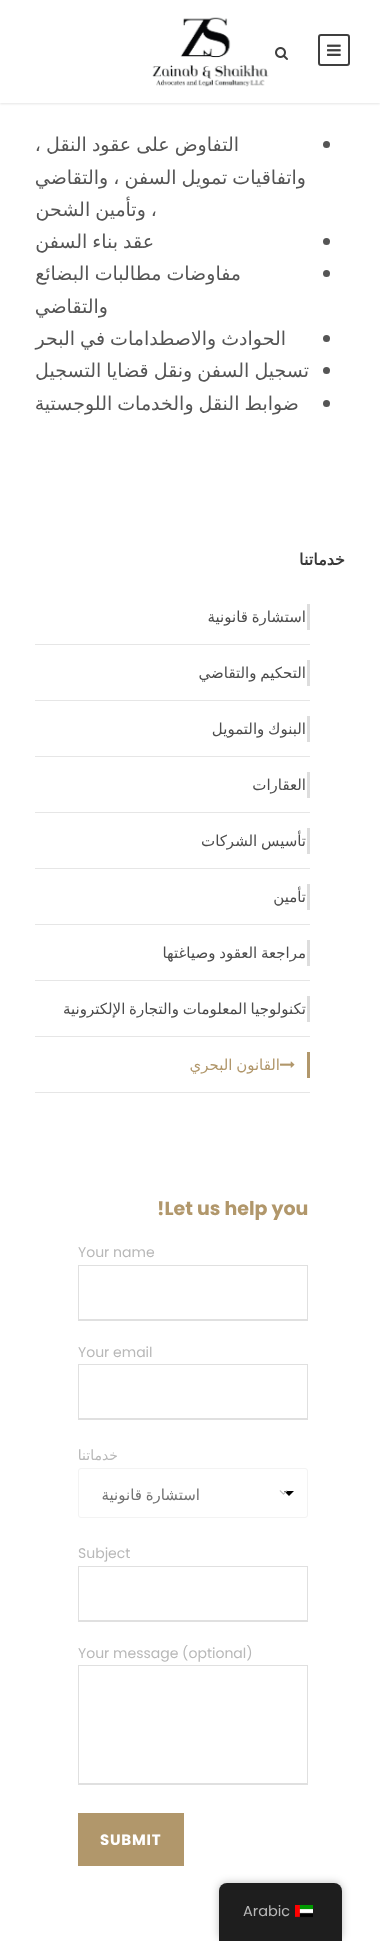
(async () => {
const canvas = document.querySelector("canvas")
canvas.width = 380
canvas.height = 1941
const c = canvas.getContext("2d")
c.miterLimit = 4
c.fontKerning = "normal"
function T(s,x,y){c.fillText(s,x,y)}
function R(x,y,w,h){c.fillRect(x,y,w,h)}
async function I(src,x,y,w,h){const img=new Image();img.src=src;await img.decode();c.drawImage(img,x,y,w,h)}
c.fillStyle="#fff"
R(0,0,380,1941)
c.fillStyle="#0000001a"
c.filter="blur(1px)"
c.beginPath()
c.rect(0,1,380,103)
c.fill()
c.filter="none"
c.fillStyle="#fff"
R(0,0,380,103)
c.beginPath()
c.roundRect(319,35,30,30,2)
c.strokeStyle="#3f3f3f"
c.lineWidth=2
c.stroke()
await I("1.png",327,44,14,12)
await I("2.png",275,47,13,13)
await I("3.png",152,17,117,70)
c.fillStyle="#555"
c.beginPath()
c.arc(326.5,144.5,3.5,0,7)
c.fill()
c.wordSpacing="-1px"
c.direction="rtl"
c.font="19px DejaVu Sans"
T("التفاوض على عقود النقل ،",239,151)
T("واتفاقيات تمويل السفن ، والتقاضي",306,184)
T("، وتأمين الشحن",157,216)
c.beginPath()
c.arc(326.5,241.5,3.5,0,7)
c.fill()
T("عقد بناء السفن",154,248)
c.beginPath()
c.arc(326.5,273.5,3.5,0,7)
c.fill()
T("مفاوضات مطالبات البضائع",241,280)
c.wordSpacing="0px"
T("والتقاضي",108,313)
c.beginPath()
c.arc(326.5,338.5,3.5,0,7)
c.fill()
c.wordSpacing="-1px"
T("الحوادث والاصطدامات في البحر",286,345)
c.beginPath()
c.arc(326.5,370.5,3.5,0,7)
c.fill()
T("تسجيل السفن ونقل قضايا التسجيل",309,377)
c.beginPath()
c.arc(326.5,403.5,3.5,0,7)
c.fill()
T("ضوابط النقل والخدمات اللوجستية",299,410)
c.wordSpacing="0px"
c.font="bold 16px DejaVu Sans"
c.fillStyle="#383838"
T("خدماتنا",345,565)
c.fillStyle="#e6e6e6"
R(35,644,275,1)
c.fillStyle="#ddd"
R(307,604,3,26)
c.wordSpacing="-1px"
c.font="15px DejaVu Sans"
c.fillStyle="#4c4c4c"
T("استشارة قانونية",306,622)
c.fillStyle="#e6e6e6"
R(35,700,275,1)
c.fillStyle="#ddd"
R(307,660,3,26)
c.fillStyle="#4c4c4c"
T("التحكيم والتقاضي",306,678)
c.fillStyle="#e6e6e6"
R(35,756,275,1)
c.fillStyle="#ddd"
R(307,716,3,26)
c.fillStyle="#4c4c4c"
T("البنوك والتمويل",306,734)
c.fillStyle="#e6e6e6"
R(35,812,275,1)
c.fillStyle="#ddd"
R(307,772,3,26)
c.wordSpacing="0px"
c.fillStyle="#4c4c4c"
T("العقارات",306,790)
c.fillStyle="#e6e6e6"
R(35,868,275,1)
c.fillStyle="#ddd"
R(307,828,3,26)
c.wordSpacing="-1px"
c.fillStyle="#4c4c4c"
T("تأسيس الشركات",306,846)
c.fillStyle="#e6e6e6"
R(35,924,275,1)
c.fillStyle="#ddd"
R(307,884,3,26)
c.wordSpacing="0px"
c.fillStyle="#4c4c4c"
T("تأمين",306,902)
c.fillStyle="#e6e6e6"
R(35,980,275,1)
c.fillStyle="#ddd"
R(307,940,3,26)
c.wordSpacing="-1px"
c.fillStyle="#4c4c4c"
T("مراجعة العقود وصياغتها",306,958)
c.fillStyle="#e6e6e6"
R(35,1036,275,1)
c.fillStyle="#ddd"
R(307,996,3,26)
c.fillStyle="#4c4c4c"
T("تكنولوجيا المعلومات والتجارة الإلكترونية",306,1014)
c.fillStyle="#e6e6e6"
R(35,1092,275,1)
c.fillStyle="#b1976b"
R(307,1052,3,26)
await I("4.png",280,1061,15,7)
T("القانون البحري",280,1070)
c.wordSpacing="0px"
c.direction="ltr"
c.font="bold 19px Poppins"
T("!Let us help you",157,1215)
c.font="14px Poppins"
c.fillStyle="#b8b8b8"
T("Your name",78,1257)
c.fillStyle="#e0e0e0"
R(78,1265,230,1)
R(307,1265,1,56)
R(78,1319,230,2)
R(78,1265,1,56)
c.fillStyle="#b8b8b8"
T("Your email",78,1357)
c.fillStyle="#e0e0e0"
R(78,1364,230,1)
R(307,1364,1,56)
R(78,1418,230,2)
R(78,1364,1,56)
c.direction="rtl"
c.font="14px DejaVu Sans"
c.fillStyle="#b8b8b8"
T("خدماتنا",118,1460)
await I("6.png",284,1491,10,5)
c.beginPath()
c.roundRect(78.5,1468.5,229,49,2.5)
c.strokeStyle="#f3f3f3"
c.lineWidth=1
c.stroke()
await I("5.png",279,1490,9,5)
c.wordSpacing="-1px"
c.font="15px DejaVu Sans"
c.fillStyle="#727272"
T("استشارة قانونية",200,1500)
c.wordSpacing="0px"
c.direction="ltr"
c.font="14px Poppins"
c.fillStyle="#b8b8b8"
T("Subject",78,1558)
c.fillStyle="#e0e0e0"
R(78,1566,230,1)
R(307,1566,1,56)
R(78,1620,230,2)
R(78,1566,1,56)
c.fillStyle="#b8b8b8"
T("Your message (optional)",78,1658)
c.fillStyle="#e0e0e0"
R(78,1665,230,1)
R(307,1665,1,120)
R(78,1783,230,2)
R(78,1665,1,120)
c.fillStyle="#b1976b"
R(78,1813,106,53)
c.letterSpacing="0.75px"
c.font="bold 15px Poppins"
c.fillStyle="#fff"
T("SUBMIT",100,1845)
c.fillStyle="#00000040"
c.filter="blur(4px)"
c.beginPath()
c.roundRect(219,1883,123,58,8)
c.fill()
c.filter="none"
c.fillStyle="#1e1e1e"
c.beginPath()
c.roundRect(219,1883,123,58,[8,8,0,0])
c.fill()
await I("7.png",295,1905,18,13)
c.letterSpacing="0px"
c.font="14.5px Poppins"
c.fillStyle="#b8b8b8"
T("Arabic",243,1916)
})()
